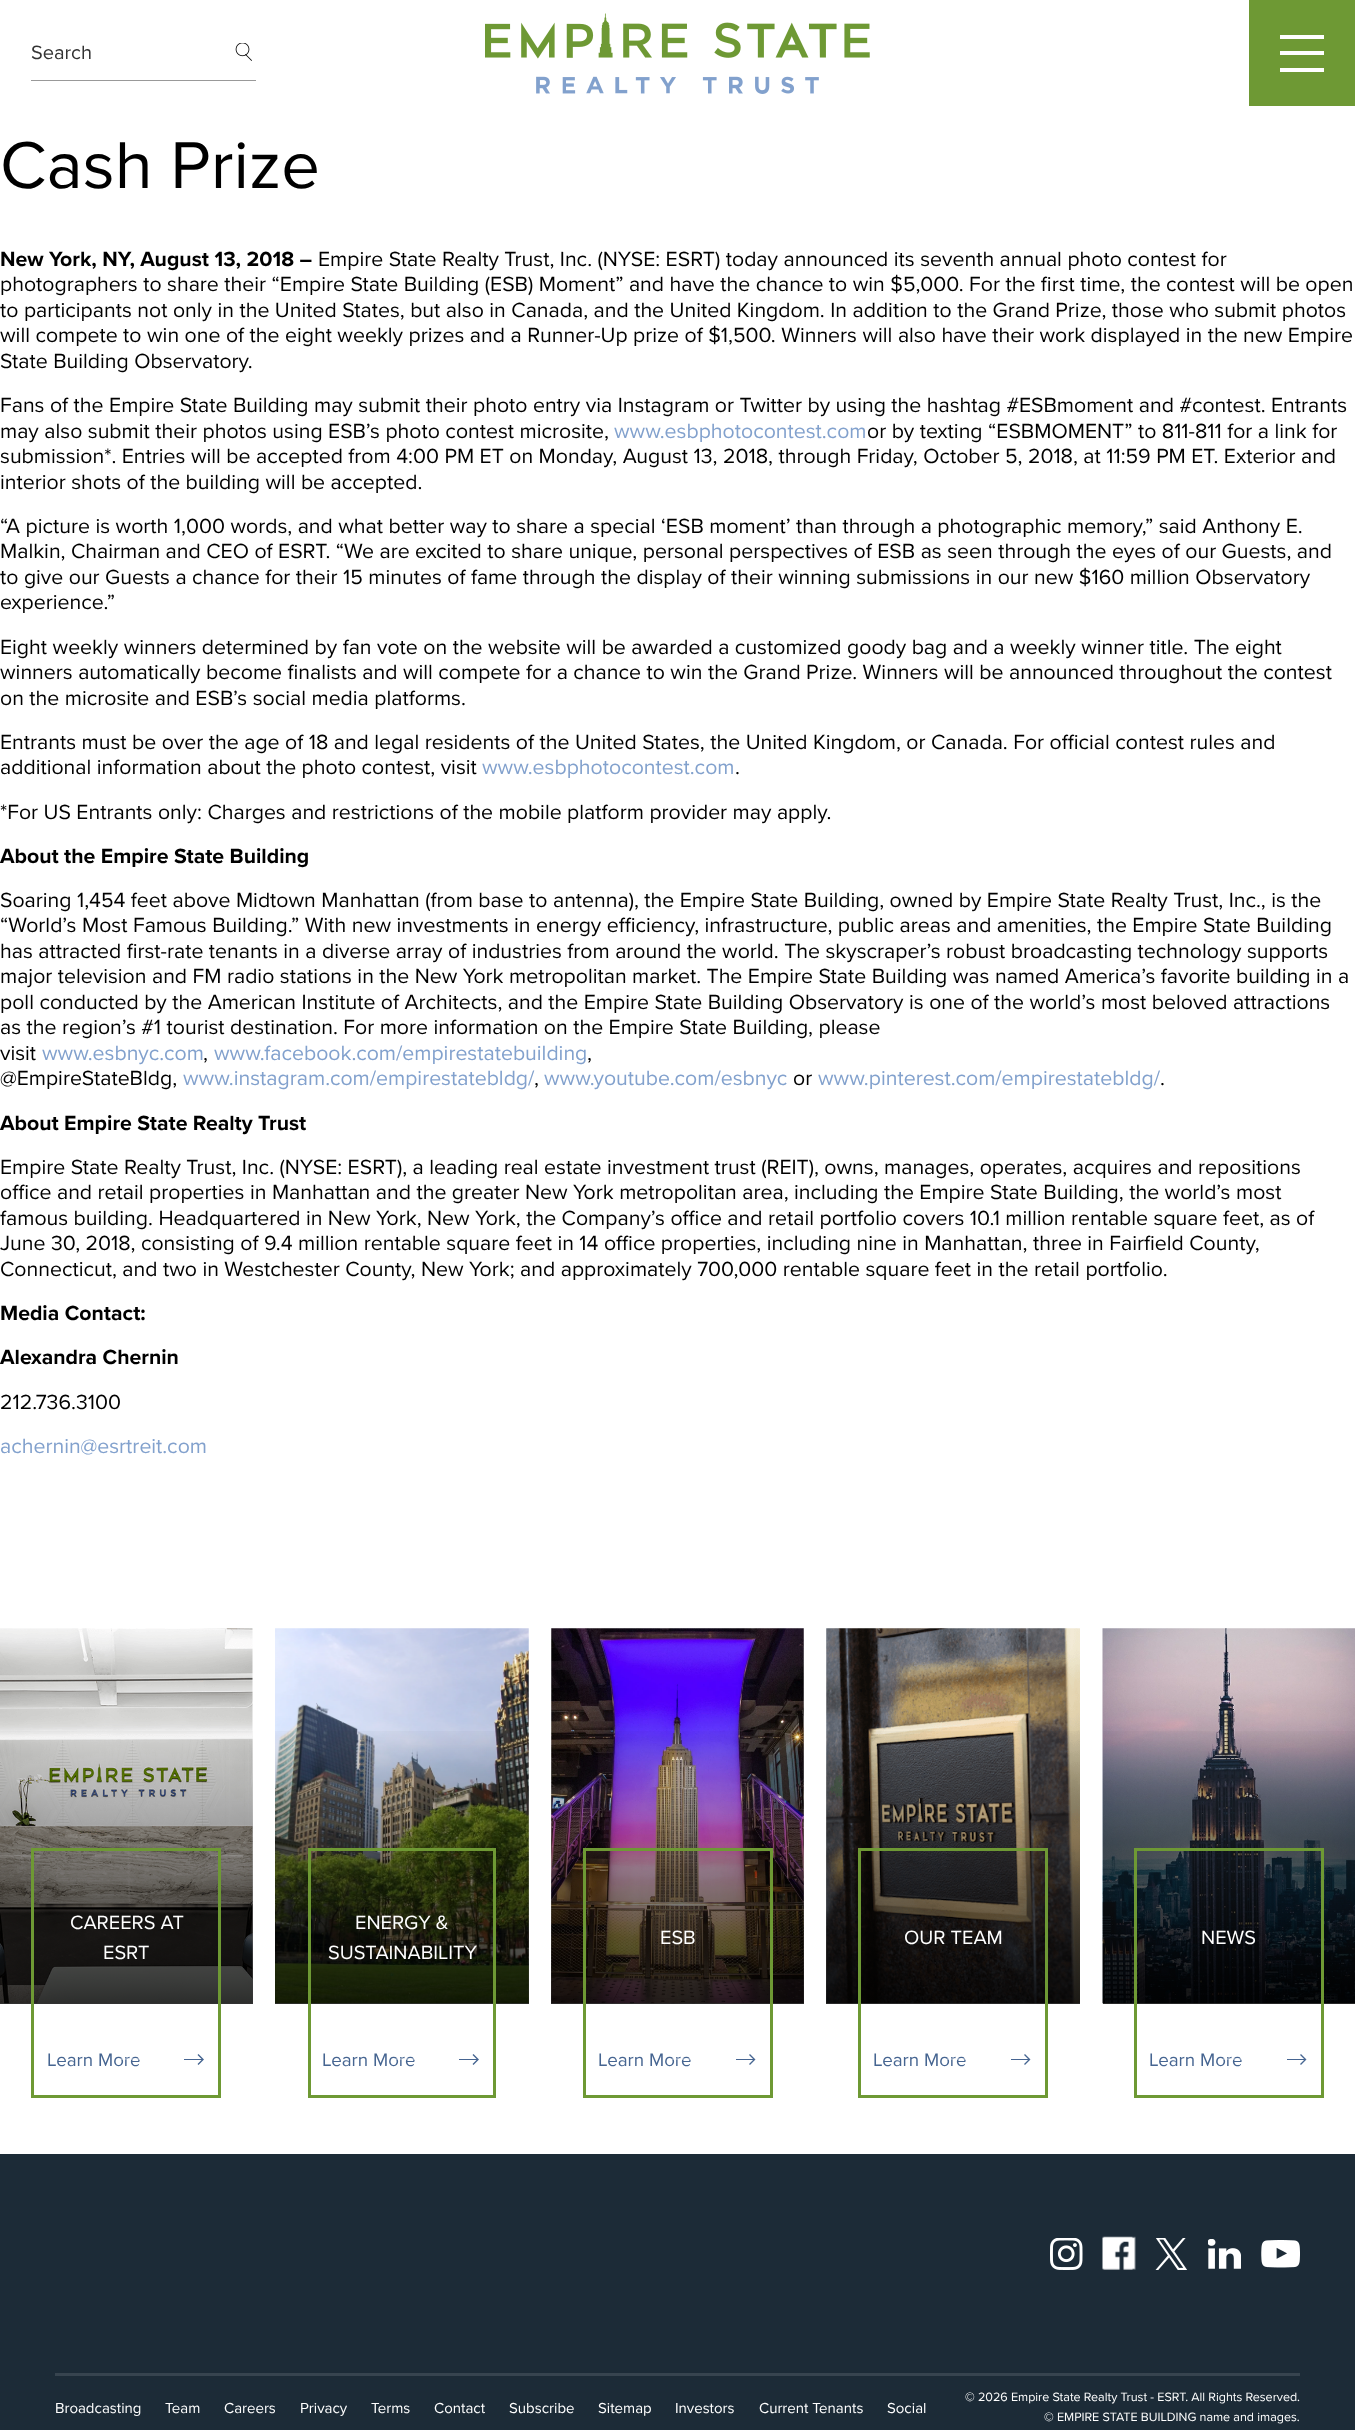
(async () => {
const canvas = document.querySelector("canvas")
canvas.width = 1355
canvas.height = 2430
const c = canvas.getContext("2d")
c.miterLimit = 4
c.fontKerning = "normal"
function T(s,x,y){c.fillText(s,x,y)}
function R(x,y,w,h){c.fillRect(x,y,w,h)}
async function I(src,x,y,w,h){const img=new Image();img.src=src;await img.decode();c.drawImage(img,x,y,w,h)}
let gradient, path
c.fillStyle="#fff"
R(0,0,1355,2430)
await I("1.png",235,43,17,18)
c.fillStyle="#999"
R(31,80,225,1)
c.font="20px Proxima Nova"
c.fillStyle="#333"
T("Search",31,59)
await I("2.png",485,13,385,81)
c.fillStyle="#6e9934"
R(1249,0,106,106)
c.fillStyle="#fff"
R(1280,35,44,4)
R(1280,51,44,4)
R(1280,68,44,4)
c.font="68.75px Proxima Nova"
c.fillStyle="#000"
T("Cash Prize",0,188)
c.font="bold 21.25px Proxima Nova"
T("New York, NY, August 13, 2018 –",0,266)
c.font="21.25px Proxima Nova"
T("Empire State Realty Trust, Inc. (NYSE: ESRT) today announced its seventh annual photo contest for",318,266)
T("photographers to share their “Empire State Building (ESB) Moment” and have the chance to win $5,000. For the first time, the contest will be open",0,291)
T("to participants not only in the United States, but also in Canada, and the United Kingdom. In addition to the Grand Prize, those who submit photos",0,317)
T("will compete to win one of the eight weekly prizes and a Runner-Up prize of $1,500. Winners will also have their work displayed in the new Empire",0,342)
T("State Building Observatory.",0,368)
T("Fans of the Empire State Building may submit their photo entry via Instagram or Twitter by using the hashtag #ESBmoment and #contest. Entrants",0,412)
T("may also submit their photos using ESB’s photo contest microsite,",0,438)
c.fillStyle="#82a1cd"
T("www.esbphotocontest.com",614,438)
c.fillStyle="#000"
T("or by texting “ESBMOMENT” to 811-811 for a link for",867,438)
T("submission*. Entries will be accepted from 4:00 PM ET on Monday, August 13, 2018, through Friday, October 5, 2018, at 11:59 PM ET. Exterior and",0,463)
T("interior shots of the building will be accepted.",0,489)
T("“A picture is worth 1,000 words, and what better way to share a special ‘ESB moment’ than through a photographic memory,” said Anthony E.",0,533)
T("Malkin, Chairman and CEO of ESRT. “We are excited to share unique, personal perspectives of ESB as seen through the eyes of our Guests, and",0,558)
T("to give our Guests a chance for their 15 minutes of fame through the display of their winning submissions in our new $160 million Observatory",0,584)
T("experience.”",0,609)
T("Eight weekly winners determined by fan vote on the website will be awarded a customized goody bag and a weekly winner title. The eight",0,654)
T("winners automatically become finalists and will compete for a chance to win the Grand Prize. Winners will be announced throughout the contest",0,679)
T("on the microsite and ESB’s social media platforms.",0,705)
T("Entrants must be over the age of 18 and legal residents of the United States, the United Kingdom, or Canada. For official contest rules and",0,749)
T("additional information about the photo contest, visit",0,774)
c.fillStyle="#82a1cd"
T("www.esbphotocontest.com",482,774)
c.fillStyle="#000"
T(".",735,774)
T("*For US Entrants only: Charges and restrictions of the mobile platform provider may apply.",0,819)
c.font="bold 21.25px Proxima Nova"
T("About the Empire State Building",0,863)
c.font="21.25px Proxima Nova"
T("Soaring 1,454 feet above Midtown Manhattan (from base to antenna), the Empire State Building, owned by Empire State Realty Trust, Inc., is the",0,907)
T("“World’s Most Famous Building.” With new investments in energy efficiency, infrastructure, public areas and amenities, the Empire State Building",0,932)
T("has attracted first-rate tenants in a diverse array of industries from around the world. The skyscraper’s robust broadcasting technology supports",0,958)
T("major television and FM radio stations in the New York metropolitan market. The Empire State Building was named America’s favorite building in a",0,983)
T("poll conducted by the American Institute of Architects, and the Empire State Building Observatory is one of the world’s most beloved attractions",0,1009)
T("as the region’s #1 tourist destination. For more information on the Empire State Building, please",0,1034)
T("visit",0,1060)
c.fillStyle="#82a1cd"
T("www.esbnyc.com",42,1060)
c.fillStyle="#000"
T(",",203,1060)
c.fillStyle="#82a1cd"
T("www.facebook.com/empirestatebuilding",214,1060)
c.fillStyle="#000"
T(",",587,1060)
T("@EmpireStateBldg,",0,1085)
c.fillStyle="#82a1cd"
T("www.instagram.com/empirestatebldg/",183,1085)
c.fillStyle="#000"
T(",",534,1085)
c.fillStyle="#82a1cd"
T("www.youtube.com/esbnyc",544,1085)
c.fillStyle="#000"
T("or",793,1085)
c.fillStyle="#82a1cd"
T("www.pinterest.com/empirestatebldg/",818,1085)
c.fillStyle="#000"
T(".",1160,1085)
c.font="bold 21.25px Proxima Nova"
T("About Empire State Realty Trust",0,1130)
c.font="21.25px Proxima Nova"
T("Empire State Realty Trust, Inc. (NYSE: ESRT), a leading real estate investment trust (REIT), owns, manages, operates, acquires and repositions",0,1174)
T("office and retail properties in Manhattan and the greater New York metropolitan area, including the Empire State Building, the world’s most",0,1199)
T("famous building. Headquartered in New York, New York, the Company’s office and retail portfolio covers 10.1 million rentable square feet, as of",0,1225)
T("June 30, 2018, consisting of 9.4 million rentable square feet in 14 office properties, including nine in Manhattan, three in Fairfield County,",0,1250)
T("Connecticut, and two in Westchester County, New York; and approximately 700,000 rentable square feet in the retail portfolio.",0,1276)
c.font="bold 21.25px Proxima Nova"
T("Media Contact:",0,1320)
T("Alexandra Chernin",0,1364)
c.font="21.25px Proxima Nova"
T("212.736.3100",0,1409)
c.fillStyle="#82a1cd"
T("achernin@esrtreit.com",0,1453)
await I("3.png",0,1628,253,376)
gradient = c.createLinearGradient(126,2004,126,1723)
gradient.addColorStop(0,"#000000cc")
gradient.addColorStop(1,"#00000000")
c.fillStyle = gradient
R(0,1731,253,273)
c.strokeStyle="#6e9934"
c.lineWidth=3
c.strokeRect(32.5,1849.5,187,247)
c.font="20px Proxima Nova"
c.fillStyle="#fff"
T("CAREERS AT",70,1929)
T("ESRT",103,1959)
c.font="18.75px Proxima Nova"
c.fillStyle="#466591"
T("Learn More",47,2066)
path = new Path2D("M136.5 2053l5.5 6l-5.5 6")
c.strokeStyle="#fff"
c.lineWidth=0.7
c.stroke(path)
path = new Path2D("M141.5 2059h-20.5")
c.lineCap="square"
c.stroke(path)
path = new Path2D("M198 2054.5l5 5l-5 5")
c.strokeStyle="#466591"
c.lineWidth=1.4
c.lineCap="butt"
c.stroke(path)
R(184,2059,19,1)
await I("4.png",275,1628,254,376)
gradient = c.createLinearGradient(402,2004,402,1723)
gradient.addColorStop(0,"#000000cc")
gradient.addColorStop(1,"#00000000")
c.fillStyle = gradient
R(275,1731,254,273)
c.strokeStyle="#6e9934"
c.lineWidth=3
c.strokeRect(309.5,1849.5,185,247)
c.font="20px Proxima Nova"
c.fillStyle="#fff"
T("ENERGY &",355,1929)
T("SUSTAINABILITY",328,1959)
c.font="18.75px Proxima Nova"
c.fillStyle="#466591"
T("Learn More",322,2066)
path = new Path2D("M411.5 2053l5.5 6l-5.5 6")
c.strokeStyle="#fff"
c.lineWidth=0.7
c.stroke(path)
path = new Path2D("M416.5 2059h-20.5")
c.lineCap="square"
c.stroke(path)
path = new Path2D("M473 2054.5l5 5l-5 5")
c.strokeStyle="#466591"
c.lineWidth=1.4
c.lineCap="butt"
c.stroke(path)
R(459,2059,19,1)
await I("5.png",551,1628,253,376)
gradient = c.createLinearGradient(678,2004,678,1723)
gradient.addColorStop(0,"#000000cc")
gradient.addColorStop(1,"#00000000")
c.fillStyle = gradient
R(551,1731,253,273)
c.strokeStyle="#6e9934"
c.lineWidth=3
c.strokeRect(584.5,1849.5,187,247)
c.font="20px Proxima Nova"
c.fillStyle="#fff"
T("ESB",660,1944)
c.font="18.75px Proxima Nova"
c.fillStyle="#466591"
T("Learn More",598,2066)
path = new Path2D("M687.5 2053l6 6l-6 6")
c.strokeStyle="#fff"
c.lineWidth=0.7
c.stroke(path)
path = new Path2D("M693 2059h-20.5")
c.lineCap="square"
c.stroke(path)
path = new Path2D("M749.5 2054.5l5 5l-5 5")
c.strokeStyle="#466591"
c.lineWidth=1.4
c.lineCap="butt"
c.stroke(path)
R(736,2059,19,1)
await I("6.png",826,1628,254,376)
gradient = c.createLinearGradient(953,2004,953,1723)
gradient.addColorStop(0,"#000000cc")
gradient.addColorStop(1,"#00000000")
c.fillStyle = gradient
R(826,1731,254,273)
c.strokeStyle="#6e9934"
c.lineWidth=3
c.strokeRect(859.5,1849.5,187,247)
c.font="20px Proxima Nova"
c.fillStyle="#fff"
T("OUR TEAM",904,1944)
c.font="18.75px Proxima Nova"
c.fillStyle="#466591"
T("Learn More",873,2066)
path = new Path2D("M962.5 2053l6 6l-6 6")
c.strokeStyle="#fff"
c.lineWidth=0.7
c.stroke(path)
path = new Path2D("M968 2059h-20.5")
c.lineCap="square"
c.stroke(path)
path = new Path2D("M1024.5 2054.5l5 5l-5 5")
c.strokeStyle="#466591"
c.lineWidth=1.4
c.lineCap="butt"
c.stroke(path)
R(1011,2059,19,1)
await I("7.png",1102,1628,253,376)
gradient = c.createLinearGradient(1229,2004,1229,1723)
gradient.addColorStop(0,"#000000cc")
gradient.addColorStop(1,"#00000000")
c.fillStyle = gradient
R(1103,1731,252,273)
c.strokeStyle="#6e9934"
c.lineWidth=3
c.strokeRect(1135.5,1849.5,187,247)
c.font="20px Proxima Nova"
c.fillStyle="#fff"
T("NEWS",1201,1944)
c.font="18.75px Proxima Nova"
c.fillStyle="#466591"
T("Learn More",1149,2066)
path = new Path2D("M1239 2053l5.5 6l-5.5 6")
c.strokeStyle="#fff"
c.lineWidth=0.7
c.stroke(path)
path = new Path2D("M1244 2059h-20.5")
c.lineCap="square"
c.stroke(path)
path = new Path2D("M1300.5 2054.5l5 5l-5 5")
c.strokeStyle="#466591"
c.lineWidth=1.4
c.lineCap="butt"
c.stroke(path)
R(1287,2059,19,1)
c.fillStyle="#1c2b37"
R(0,2154,1355,276)
await I("8.png",1050,2238,33,32)
await I("9.png",1102,2236,34,34)
await I("10.png",1155,2238,33,32)
await I("11.png",1208,2239,33,30)
await I("12.png",1261,2240,39,28)
c.fillStyle="#37444f"
R(55,2373,1245,3)
c.font="15px Proxima Nova"
c.fillStyle="#fff"
T("Broadcasting",55,2413)
T("Team",165,2413)
T("Careers",224,2413)
T("Privacy",300,2413)
T("Terms",371,2413)
T("Contact",434,2413)
T("Subscribe",509,2413)
T("Sitemap",598,2413)
T("Investors",675,2413)
T("Current Tenants",759,2413)
T("Social",887,2413)
c.font="12.5px Proxima Nova"
T("© 2026 Empire State Realty Trust - ESRT. All Rights Reserved.",965,2401)
T("© EMPIRE STATE BUILDING name and images.",1044,2421)
})()
